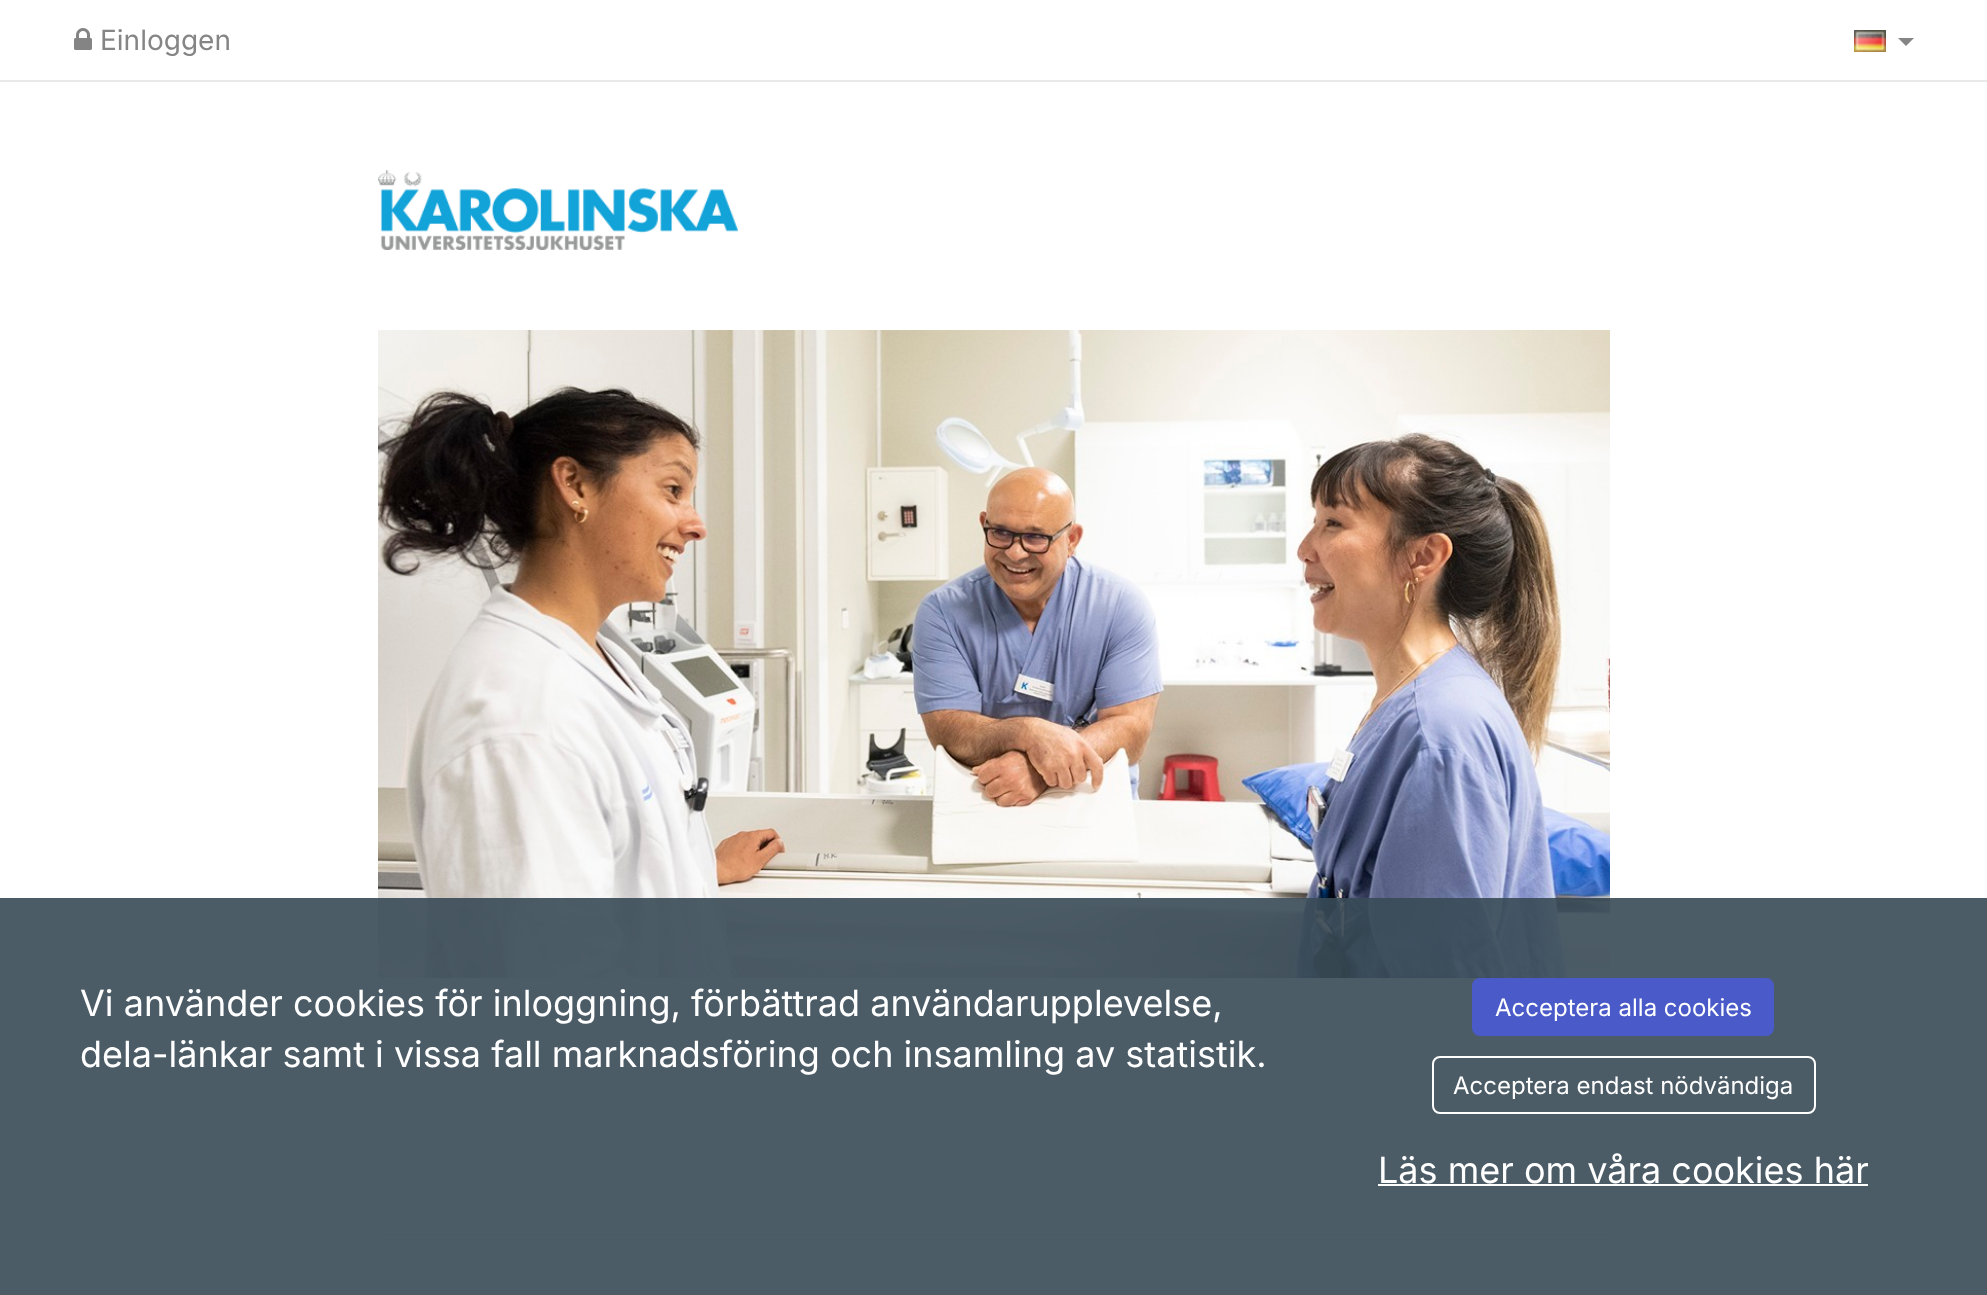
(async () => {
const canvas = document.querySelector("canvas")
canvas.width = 1987
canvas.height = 1295
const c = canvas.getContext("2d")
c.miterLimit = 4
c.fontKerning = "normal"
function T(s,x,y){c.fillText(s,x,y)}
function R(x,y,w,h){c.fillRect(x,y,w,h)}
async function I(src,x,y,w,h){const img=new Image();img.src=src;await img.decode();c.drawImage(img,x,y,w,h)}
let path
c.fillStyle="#fff"
R(0,0,1987,1295)
c.fillStyle="#e9e9e9"
R(0,80,1987,2)
await I("1.png",74,28,18,22)
c.font="28px Inter"
c.fillStyle="#858585"
T("Einloggen",100,50)
await I("2.png",1854,30,32,22)
path = new Path2D("M1898 38h16l-8 8z")
c.fill(path)
await I("3.png",378,170,360,80)
await I("4.png",378,330,1232,648)
c.fillStyle="#eee"
R(378,1234,1232,2)
c.fillStyle="#384a57e6"
R(0,898,1987,397)
c.font="36px Inter"
c.fillStyle="#fff"
T("Vi använder cookies för inloggning, förbättrad användarupplevelse,",80,1016)
T("dela-länkar samt i vissa fall marknadsföring och insamling av statistik.",80,1067)
c.fillStyle="#4a5bc9"
c.beginPath()
c.roundRect(1473,979,300,56,7)
c.fill()
c.strokeStyle="#4a5bc9"
c.lineWidth=2
c.stroke()
c.font="24px Inter"
c.fillStyle="#fff"
T("Acceptera alla cookies",1495,1016)
c.beginPath()
c.roundRect(1433,1057,382,56,7)
c.strokeStyle="#fff"
c.stroke()
T("Acceptera endast nödvändiga",1453,1094)
c.font="36px Inter"
T("Läs mer om våra cookies här",1378,1183)
R(1378,1184,490,2)
})()
